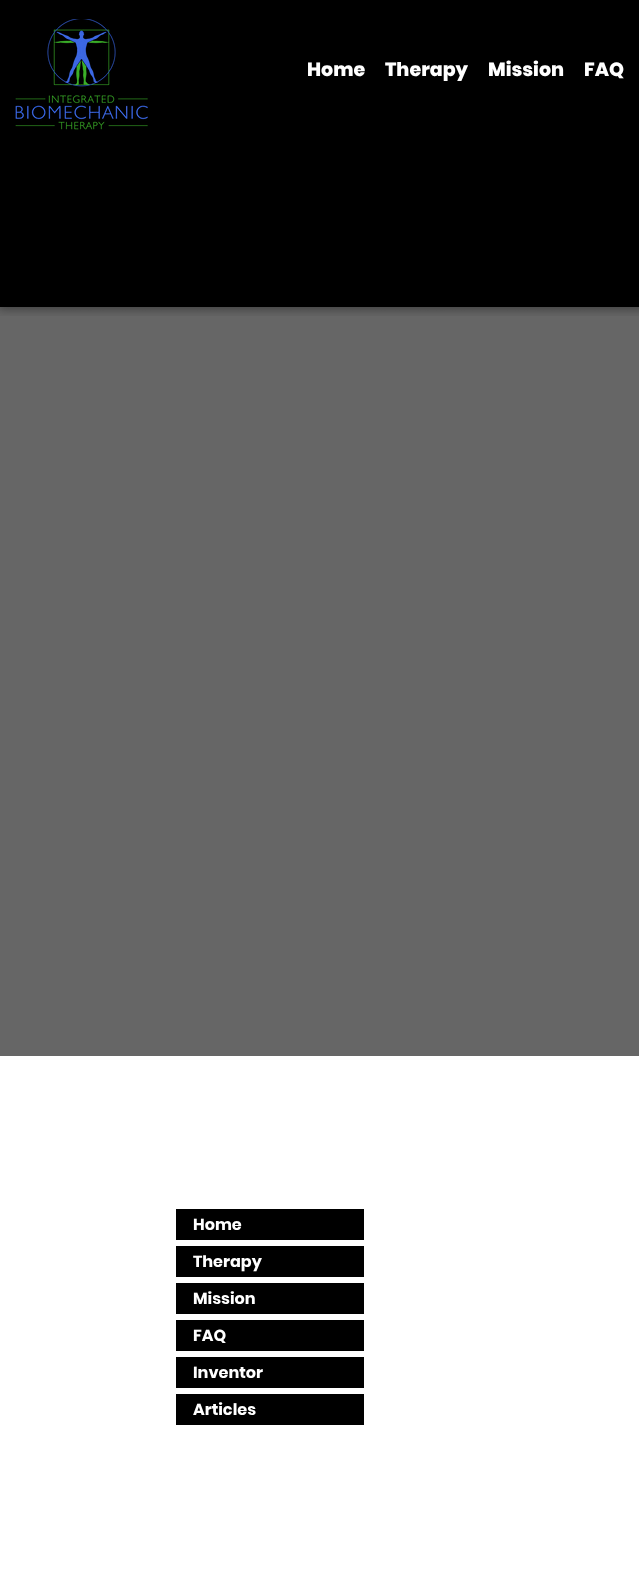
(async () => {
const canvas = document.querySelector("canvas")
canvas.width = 639
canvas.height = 1578
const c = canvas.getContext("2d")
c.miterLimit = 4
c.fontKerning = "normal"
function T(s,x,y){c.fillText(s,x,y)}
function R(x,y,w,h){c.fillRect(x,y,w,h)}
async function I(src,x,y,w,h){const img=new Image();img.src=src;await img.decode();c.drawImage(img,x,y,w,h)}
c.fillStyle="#fff"
R(0,0,639,1578)
c.fillStyle="#000"
R(0,0,639,307)
c.fillStyle="#666"
R(0,307,639,749)
await I("1.png",0,307,35,9)
await I("2.png",35,307,604,9)
await I("3.png",47,19,69,68)
c.font="800 19px Poppins"
c.fillStyle="#fff"
T("Home",307,76)
T("Therapy",385,76)
T("Mission",488,76)
T("FAQ",584,76)
await I("4.png",15,95,133,35)
c.fillStyle="#000"
R(176,1209,188,31)
c.font="bold 16px Poppins"
c.fillStyle="#fff"
T("Home",193,1230)
c.fillStyle="#000"
R(176,1246,188,31)
c.fillStyle="#fff"
T("Therapy",193,1267)
c.fillStyle="#000"
R(176,1283,188,31)
c.fillStyle="#fff"
T("Mission",193,1304)
c.fillStyle="#000"
R(176,1320,188,31)
c.fillStyle="#fff"
T("FAQ",193,1341)
c.fillStyle="#000"
R(176,1357,188,31)
c.fillStyle="#fff"
T("Inventor",193,1378)
c.fillStyle="#000"
R(176,1394,188,31)
c.fillStyle="#fff"
T("Articles",193,1415)
})()
